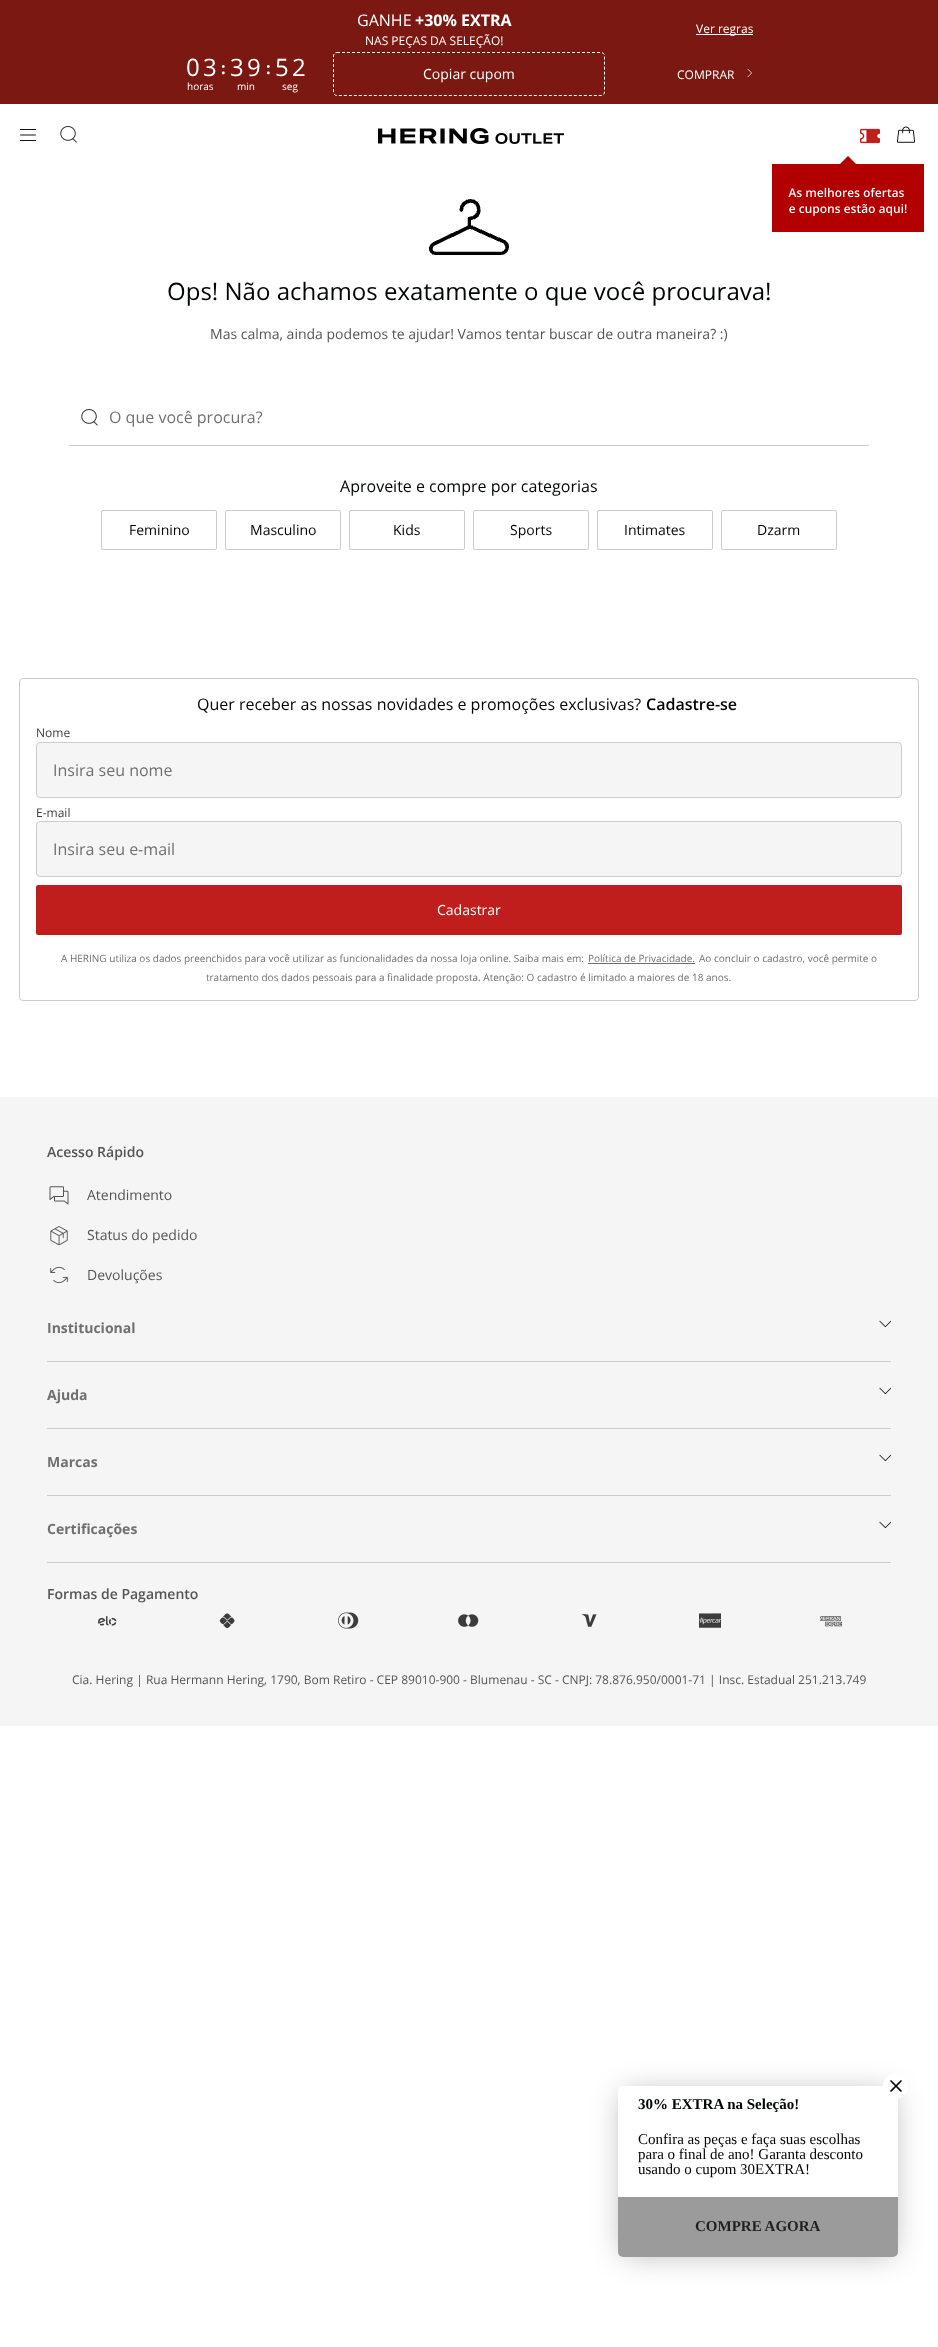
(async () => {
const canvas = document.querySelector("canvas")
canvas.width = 938
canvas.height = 2347
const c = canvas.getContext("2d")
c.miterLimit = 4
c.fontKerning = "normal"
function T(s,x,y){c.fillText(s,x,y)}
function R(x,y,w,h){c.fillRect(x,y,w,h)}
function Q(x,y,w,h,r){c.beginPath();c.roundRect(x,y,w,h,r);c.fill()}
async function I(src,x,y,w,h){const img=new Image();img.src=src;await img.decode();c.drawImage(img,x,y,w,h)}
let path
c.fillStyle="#fff"
R(0,0,938,2347)
c.fillStyle="#7b1812"
R(0,0,938,104)
c.font="16px Open Sans"
c.fillStyle="#fff"
T("GANHE",357,26)
c.font="bold 16px Open Sans"
T("+30% EXTRA",415,26)
c.font="12px Open Sans"
T("NAS PEÇAS DA SELEÇÃO!",365,45)
R(696,34,57,1)
T("Ver regras",696,33)
c.font="24px Open Sans"
T("0",186,76)
T("3",203,76)
c.font="10px Open Sans"
T("horas",187,90)
c.font="bold 16px Open Sans"
T(":",221,74)
c.font="24px Open Sans"
T("3",230,76)
T("9",247,76)
c.font="10px Open Sans"
T("min",237,90)
c.font="bold 16px Open Sans"
T(":",266,74)
c.font="24px Open Sans"
T("5",275,76)
T("2",292,76)
c.font="10px Open Sans"
T("seg",282,90)
path = new Path2D("M337 52.5h264c2 0 3.5 1.5 3.5 3.5v36c0 2-1.5 3.5-3.5 3.5h-264c-2 0-3.5-1.5-3.5-3.5v-36c0-2 1.5-3.5 3.5-3.5z")
c.strokeStyle="#fff"
c.setLineDash([3,2])
c.stroke(path)
c.font="14px Open Sans"
T("Copiar cupom",423,79)
c.font="12px Open Sans"
T("COMPRAR",677,79)
await I("1.png",747,69,5,8)
await I("2.png",60,126,17,17)
await I("3.png",378,128,186,16)
await I("4.png",897,126,18,17)
await I("5.png",20,129,16,12)
await I("6.png",860,128,20,16)
await I("7.png",772,156,152,76)
await I("8.png",429,199,80,56)
c.font="24px Open Sans"
c.fillStyle="#000404"
T("Ops! Não achamos exatamente o que você procurava!",167,300)
c.font="14px Open Sans"
c.fillStyle="#555"
T("Mas calma, ainda podemos te ajudar! Vamos tentar buscar de outra maneira? :)",210,339)
c.fillStyle="#ccc"
R(69,445,800,1)
await I("2.png",81,409,17,17)
c.font="16px Open Sans"
c.fillStyle="#707070"
T("O que você procura?",109,423)
c.fillStyle="#000404"
T("Aproveite e compre por categorias",340,492)
c.beginPath()
c.roundRect(101.5,510.5,115,39,1.5)
c.strokeStyle="#ccc"
c.setLineDash([])
c.stroke()
c.font="14px Open Sans"
T("Feminino",129,535)
c.beginPath()
c.roundRect(225.5,510.5,115,39,1.5)
c.stroke()
T("Masculino",250,535)
c.beginPath()
c.roundRect(349.5,510.5,115,39,1.5)
c.stroke()
T("Kids",393,535)
c.beginPath()
c.roundRect(473.5,510.5,115,39,1.5)
c.stroke()
T("Sports",510,535)
c.beginPath()
c.roundRect(597.5,510.5,115,39,1.5)
c.stroke()
T("Intimates",624,535)
c.beginPath()
c.roundRect(721.5,510.5,115,39,1.5)
c.stroke()
T("Dzarm",757,535)
c.beginPath()
c.roundRect(19.5,678.5,899,322,3.5)
c.stroke()
c.font="16px Open Sans"
T("Quer receber as nossas novidades e promoções exclusivas?",197,710)
c.font="600 16px Open Sans"
T("Cadastre-se",646,710)
c.font="12px Open Sans"
c.fillStyle="#3c3c3c"
T("Nome",36,737)
c.fillStyle="#f5f5f5"
c.beginPath()
c.roundRect(36.5,742.5,865,55,3.5)
c.fill()
c.stroke()
c.font="16px Open Sans"
c.fillStyle="#707070"
T("Insira seu nome",53,776)
c.font="12px Open Sans"
c.fillStyle="#3c3c3c"
T("E-mail",36,817)
c.fillStyle="#f5f5f5"
c.beginPath()
c.roundRect(36.5,821.5,865,55,3.5)
c.fill()
c.stroke()
c.font="16px Open Sans"
c.fillStyle="#707070"
T("Insira seu e-mail",53,855)
c.fillStyle="#bf1e1c"
c.beginPath()
c.roundRect(37,886,864,48,1)
c.fill()
c.strokeStyle="#bf1e1c"
c.lineWidth=2
c.stroke()
c.font="14px Open Sans"
c.fillStyle="#fff"
T("Cadastrar",437,915)
c.font="10px Open Sans"
c.fillStyle="#707070"
T("A HERING utiliza os dados preenchidos para você utilizar as funcionalidades da nossa loja online. Saiba mais em:",61,962)
T("Política de Privacidade.",588,962)
R(588,963,107,1)
T("Ao concluir o cadastro, você permite o",699,962)
T("tratamento dos dados pessoais para a finalidade proposta. Atenção: O cadastro é limitado a maiores de 18 anos.",206,981)
c.fillStyle="#f5f5f5"
R(0,1097,938,629)
c.font="600 14px Open Sans"
c.fillStyle="#555"
T("Acesso Rápido",47,1157)
await I("9.png",49,1186,20,19)
c.font="14px Open Sans"
T("Atendimento",87,1200)
await I("10.png",50,1226,18,19)
T("Status do pedido",87,1240)
await I("11.png",50,1266,18,17)
T("Devoluções",87,1280)
c.fillStyle="#ccc"
R(47,1361,844,1)
c.font="bold 14px Open Sans"
c.fillStyle="#707070"
T("Institucional",47,1333)
await I("12.png",879,1320,12,7)
c.fillStyle="#ccc"
R(47,1428,844,1)
c.fillStyle="#707070"
T("Ajuda",47,1400)
await I("12.png",879,1387,12,7)
c.fillStyle="#ccc"
R(47,1495,844,1)
c.fillStyle="#707070"
T("Marcas",47,1467)
await I("12.png",879,1454,12,7)
c.fillStyle="#ccc"
R(47,1562,844,1)
c.fillStyle="#707070"
T("Certificações",47,1534)
await I("12.png",879,1521,12,7)
c.font="600 14px Open Sans"
c.fillStyle="#555"
T("Formas de Pagamento",47,1599)
await I("13.png",98,1616,19,10)
await I("14.png",219,1613,16,16)
await I("15.png",338,1612,21,17)
await I("16.png",458,1614,21,13)
await I("17.png",581,1614,16,13)
await I("18.png",699,1613,22,15)
await I("19.png",820,1616,22,11)
c.font="12px Open Sans"
T("Cia. Hering | Rua Hermann Hering, 1790, Bom Retiro - CEP 89010-900 - Blumenau - SC - CNPJ: 78.876.950/0001-71 | Insc. Estadual 251.213.749",72,1684)
c.fillStyle="#0000004d"
c.filter="blur(15px)"
c.beginPath()
c.rect(623,2093,270,161)
c.fill()
c.filter="none"
c.fillStyle="#fff"
Q(618,2086,280,171,5)
c.beginPath()
c.arc(895.5,2086.5,12.5,0,7)
c.fill()
path = new Path2D("M901 2081l-10 10m0-10l10 10")
c.strokeStyle="#000"
c.lineWidth=1.7
c.lineCap="round"
c.lineJoin="round"
c.stroke(path)
c.font="bold 15px Liberation Serif"
c.fillStyle="#000404"
T("30% EXTRA na Seleção!",638,2109)
c.font="15px Liberation Serif"
T("Confira as peças e faça suas escolhas",638,2144)
T("para o final de ano! Garanta desconto",638,2159)
T("usando o cupom 30EXTRA!",638,2174)
c.fillStyle="#9b9b9b"
c.beginPath()
c.roundRect(618,2197,280,60,[0,0,5,5])
c.fill()
c.font="bold 15px Liberation Serif"
c.fillStyle="#1f1f1f"
T("COMPRE AGORA",695,2231)
})()
